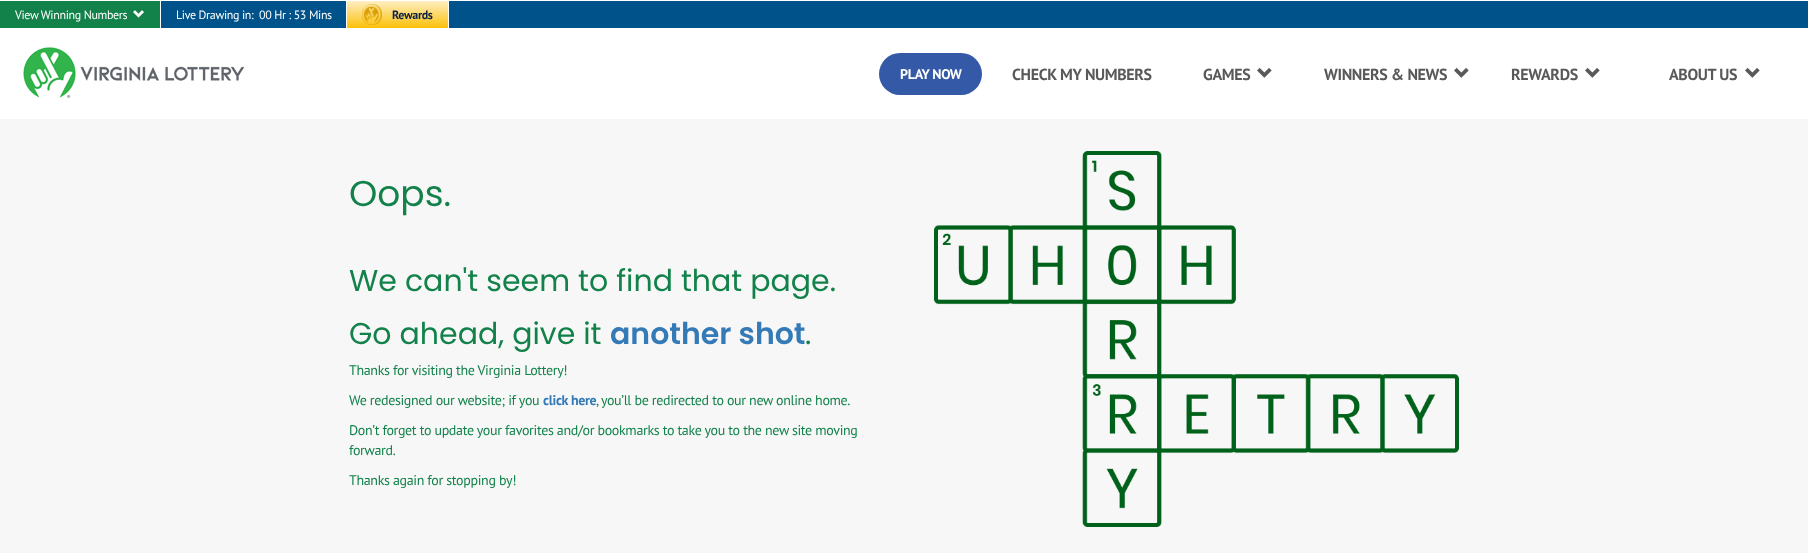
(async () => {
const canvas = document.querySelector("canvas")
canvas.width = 1808
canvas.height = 553
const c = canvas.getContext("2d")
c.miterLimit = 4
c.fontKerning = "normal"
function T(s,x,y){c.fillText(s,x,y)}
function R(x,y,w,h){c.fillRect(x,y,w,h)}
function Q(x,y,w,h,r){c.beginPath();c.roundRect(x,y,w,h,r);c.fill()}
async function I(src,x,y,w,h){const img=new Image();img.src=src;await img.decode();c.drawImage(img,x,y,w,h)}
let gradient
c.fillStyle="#f7f7f7"
R(0,0,1808,553)
c.fillStyle="#fff"
R(0,0,1808,119)
c.fillStyle="#12824a"
R(0,1,160,27)
c.letterSpacing="-0.35px"
c.font="12px PT Sans"
c.fillStyle="#fff"
T("View Winning Numbers",15,19)
await I("1.png",133,10,11,8)
c.fillStyle="#00528b"
R(161,1,185,27)
c.fillStyle="#fff"
T("Live Drawing in:",176,19)
T("00 Hr : 53 Mins",259,19)
gradient = c.createLinearGradient(398,1,398,28)
gradient.addColorStop(0,"#ffeec2")
gradient.addColorStop(1,"#fcc108")
c.fillStyle = gradient
R(347,1,101,27)
await I("2.png",362,4,20,21)
c.font="bold 12px PT Sans"
c.fillStyle="#0e2248"
T("Rewards",392,19)
c.fillStyle="#00528b"
R(449,1,1359,27)
await I("3.png",23,47,221,51)
c.fillStyle="#3459a6"
Q(879,53,103,42,21)
c.font="bold 14px PT Sans"
c.fillStyle="#fff"
T("PLAY NOW",900,79)
c.font="bold 16px PT Sans"
c.fillStyle="#595959"
T("CHECK MY NUMBERS",1012,80)
T("GAMES",1203,80)
await I("4.png",1257,67,15,11)
T("WINNERS & NEWS",1324,80)
await I("4.png",1454,67,15,11)
T("REWARDS",1511,80)
await I("4.png",1585,67,15,11)
T("ABOUT US",1669,80)
await I("4.png",1745,67,15,11)
c.letterSpacing="0px"
c.font="36px Poppins"
c.fillStyle="#12824a"
T("Oops.",349,206)
c.font="30px Poppins"
T("We can't seem to find that page.",349,291)
T("Go ahead, give it",349,344)
c.font="600 30px Poppins"
c.fillStyle="#337ab7"
T("another shot",610,344)
c.font="30px Poppins"
c.fillStyle="#12824a"
T(".",805,344)
c.letterSpacing="-0.35px"
c.font="14px PT Sans"
T("Thanks for visiting the Virginia Lottery!",349,375)
T("We redesigned our website; if you",349,405)
c.font="bold 14px PT Sans"
c.fillStyle="#337ab7"
T("click here",543,405)
c.font="14px PT Sans"
c.fillStyle="#12824a"
T(", you’ll be redirected to our new online home.",596,405)
T("Don’t forget to update your favorites and/or bookmarks to take you to the new site moving",349,435)
T("forward.",349,455)
T("Thanks again for stopping by!",349,485)
await I("5.png",934,151,525,376)
})()
